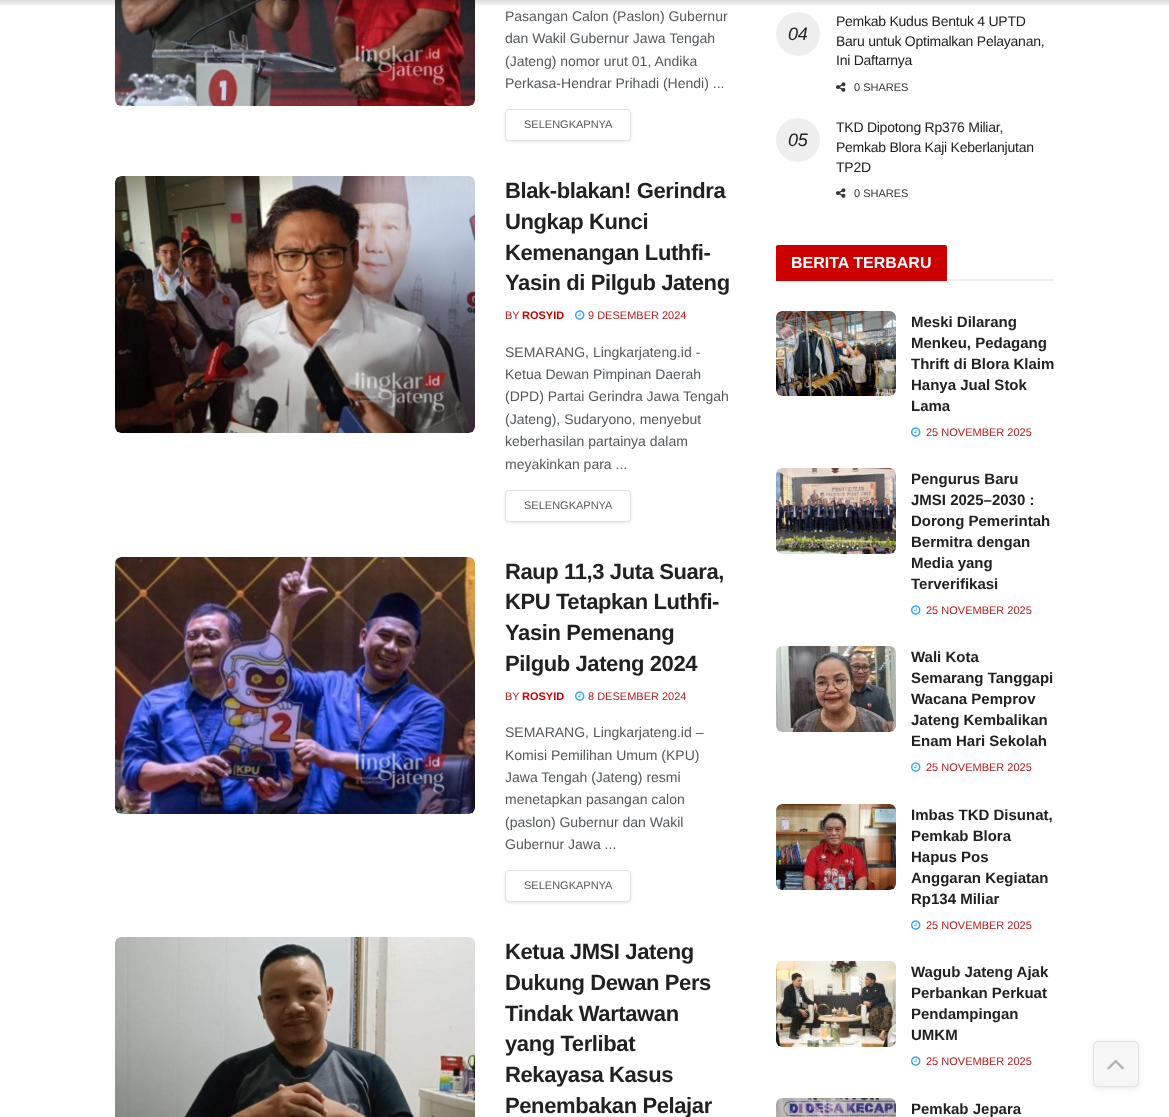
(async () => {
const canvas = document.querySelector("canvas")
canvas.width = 1169
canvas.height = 1117
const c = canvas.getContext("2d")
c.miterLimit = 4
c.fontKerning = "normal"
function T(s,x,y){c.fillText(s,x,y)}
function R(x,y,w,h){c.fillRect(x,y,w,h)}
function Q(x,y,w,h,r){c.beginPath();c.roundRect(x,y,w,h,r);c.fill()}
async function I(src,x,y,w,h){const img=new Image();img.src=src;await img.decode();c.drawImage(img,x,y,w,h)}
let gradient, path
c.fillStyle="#fff"
R(0,0,1169,1117)
c.fillStyle="#f7f7f7"
Q(115,-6,360,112,6)
await I("1.png",115,0,360,106)
gradient = c.createLinearGradient(585,0,585,7)
gradient.addColorStop(0,"#00000026")
gradient.addColorStop(1,"#00000000")
c.fillStyle = gradient
R(0,0,1169,6)
c.font="14px Liberation Sans"
c.fillStyle="#53585c"
T("Pasangan Calon (Paslon) Gubernur",505,21)
T("dan Wakil Gubernur Jawa Tengah",505,43)
T("(Jateng) nomor urut 01, Andika",505,66)
T("Perkasa-Hendrar Prihadi (Hendi) ...",505,88)
c.save()
path = new Path2D("M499 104h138v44h-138zm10 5h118c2 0 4 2 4 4v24c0 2-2 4-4 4h-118c-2 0-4-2-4-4v-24c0-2 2-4 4-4z")
c.clip(path,"evenodd")
c.fillStyle="#0000001a"
c.filter="blur(1.5px)"
c.beginPath()
c.roundRect(505,110,126,32,4)
c.fill()
c.filter="none"
c.restore()
c.beginPath()
c.roundRect(505.5,109.5,125,31,3.5)
c.strokeStyle="#e0e0e0"
c.stroke()
c.font="11px Liberation Sans"
T("SELENGKAPNYA",524,128)
c.fillStyle="#f7f7f7"
Q(115,176,360,257,6)
await I("2.png",115,176,360,257)
c.letterSpacing="-0.4px"
c.font="bold 22px Liberation Sans"
c.fillStyle="#212121"
T("Blak-blakan! Gerindra",505,198)
T("Ungkap Kunci",505,229)
T("Kemenangan Luthfi-",505,260)
T("Yasin di Pilgub Jateng",505,290)
c.letterSpacing="0px"
c.font="11px Liberation Sans"
c.fillStyle="#b71c1c"
T("BY",505,319)
c.font="bold 11px Liberation Sans"
c.fillStyle="#c00"
T("ROSYID",522,319)
await I("3.png",575,310,10,10)
c.font="11px Liberation Sans"
c.fillStyle="#b71c1c"
T("9 DESEMBER 2024",588,319)
c.font="14px Liberation Sans"
c.fillStyle="#53585c"
T("SEMARANG, Lingkarjateng.id -",505,357)
T("Ketua Dewan Pimpinan Daerah",505,379)
T("(DPD) Partai Gerindra Jawa Tengah",505,401)
T("(Jateng), Sudaryono, menyebut",505,424)
T("keberhasilan partainya dalam",505,446)
T("meyakinkan para ...",505,469)
c.save()
path = new Path2D("M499 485h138v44h-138zm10 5h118c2 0 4 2 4 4v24c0 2-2 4-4 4h-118c-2 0-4-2-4-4v-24c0-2 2-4 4-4z")
c.clip(path,"evenodd")
c.fillStyle="#0000001a"
c.filter="blur(1.5px)"
c.beginPath()
c.roundRect(505,491,126,32,4)
c.fill()
c.filter="none"
c.restore()
c.beginPath()
c.roundRect(505.5,490.5,125,31,3.5)
c.stroke()
c.font="11px Liberation Sans"
T("SELENGKAPNYA",524,509)
c.fillStyle="#f7f7f7"
Q(115,557,360,257,6)
await I("4.png",115,557,360,257)
c.letterSpacing="-0.4px"
c.font="bold 22px Liberation Sans"
c.fillStyle="#212121"
T("Raup 11,3 Juta Suara,",505,579)
T("KPU Tetapkan Luthfi-",505,609)
T("Yasin Pemenang",505,640)
T("Pilgub Jateng 2024",505,671)
c.letterSpacing="0px"
c.font="11px Liberation Sans"
c.fillStyle="#b71c1c"
T("BY",505,700)
c.font="bold 11px Liberation Sans"
c.fillStyle="#c00"
T("ROSYID",522,700)
await I("3.png",575,691,10,10)
c.font="11px Liberation Sans"
c.fillStyle="#b71c1c"
T("8 DESEMBER 2024",588,700)
c.font="14px Liberation Sans"
c.fillStyle="#53585c"
T("SEMARANG, Lingkarjateng.id –",505,737)
T("Komisi Pemilihan Umum (KPU)",505,760)
T("Jawa Tengah (Jateng) resmi",505,782)
T("menetapkan pasangan calon",505,804)
T("(paslon) Gubernur dan Wakil",505,827)
T("Gubernur Jawa ...",505,849)
c.save()
path = new Path2D("M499 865h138v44h-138zm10 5h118c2 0 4 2 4 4v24c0 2-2 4-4 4h-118c-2 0-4-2-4-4v-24c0-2 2-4 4-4z")
c.clip(path,"evenodd")
c.fillStyle="#0000001a"
c.filter="blur(1.5px)"
c.beginPath()
c.roundRect(505,871,126,32,4)
c.fill()
c.filter="none"
c.restore()
c.beginPath()
c.roundRect(505.5,870.5,125,31,3.5)
c.stroke()
c.font="11px Liberation Sans"
T("SELENGKAPNYA",524,889)
c.fillStyle="#f7f7f7"
Q(115,937,360,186,6)
await I("5.png",115,937,360,180)
c.letterSpacing="-0.4px"
c.font="bold 22px Liberation Sans"
c.fillStyle="#212121"
T("Ketua JMSI Jateng",505,959)
T("Dukung Dewan Pers",505,990)
c.save()
c.beginPath()
c.rect(505,937,226,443)
c.clip()
T("Tindak Wartawan",505,1021)
c.restore()
T("yang Terlibat",505,1051)
T("Rekayasa Kasus",505,1082)
T("Penembakan Pelajar",505,1113)
c.letterSpacing="-0.25px"
c.font="14px Liberation Sans"
T("Pemkab Kudus Bentuk 4 UPTD",836,26)
c.fillStyle="#eee"
c.beginPath()
c.arc(798,34,22,0,7)
c.fill()
c.font="italic 18px Liberation Sans"
c.fillStyle="#212121"
T("04",788,40)
c.font="14px Liberation Sans"
T("Baru untuk Optimalkan Pelayanan,",836,46)
T("Ini Daftarnya",836,65)
await I("6.png",836,82,10,10)
c.letterSpacing="0px"
c.font="11px Liberation Sans"
c.fillStyle="#333"
T("0 SHARES",854,91)
c.letterSpacing="-0.25px"
c.font="14px Liberation Sans"
c.fillStyle="#212121"
T("TKD Dipotong Rp376 Miliar,",836,132)
c.fillStyle="#eee"
c.beginPath()
c.arc(798,140,22,0,7)
c.fill()
c.font="italic 18px Liberation Sans"
c.fillStyle="#212121"
T("05",788,146)
c.font="14px Liberation Sans"
T("Pemkab Blora Kaji Keberlanjutan",836,152)
T("TP2D",836,172)
await I("6.png",836,188,10,10)
c.letterSpacing="0px"
c.font="11px Liberation Sans"
c.fillStyle="#333"
T("0 SHARES",854,197)
c.fillStyle="#eee"
R(947,279,107,2)
c.fillStyle="#c00"
c.beginPath()
c.roundRect(776,245,171,36,[2,2,0,0])
c.fill()
c.font="bold 16px Liberation Sans"
c.fillStyle="#fff"
T("BERITA TERBARU",791,268)
c.fillStyle="#f7f7f7"
Q(776,311,120,85,6)
await I("7.png",776,311,120,85)
c.font="bold 15px Liberation Sans"
c.fillStyle="#212121"
T("Meski Dilarang",911,327)
T("Menkeu, Pedagang",911,348)
T("Thrift di Blora Klaim",911,369)
T("Hanya Jual Stok",911,390)
T("Lama",911,411)
await I("3.png",911,427,10,10)
c.font="11px Liberation Sans"
c.fillStyle="#b71c1c"
T("25 NOVEMBER 2025",926,436)
c.fillStyle="#f7f7f7"
Q(776,468,120,86,6)
await I("8.png",776,468,120,86)
c.font="bold 15px Liberation Sans"
c.fillStyle="#212121"
T("Pengurus Baru",911,484)
T("JMSI 2025–2030 :",911,505)
T("Dorong Pemerintah",911,526)
T("Bermitra dengan",911,547)
T("Media yang",911,568)
T("Terverifikasi",911,589)
await I("3.png",911,605,10,10)
c.font="11px Liberation Sans"
c.fillStyle="#b71c1c"
T("25 NOVEMBER 2025",926,614)
c.fillStyle="#f7f7f7"
Q(776,646,120,86,6)
await I("9.png",776,646,120,86)
c.font="bold 15px Liberation Sans"
c.fillStyle="#212121"
T("Wali Kota",911,662)
T("Semarang Tanggapi",911,683)
T("Wacana Pemprov",911,704)
T("Jateng Kembalikan",911,725)
T("Enam Hari Sekolah",911,746)
await I("3.png",911,762,10,10)
c.font="11px Liberation Sans"
c.fillStyle="#b71c1c"
T("25 NOVEMBER 2025",926,771)
c.fillStyle="#f7f7f7"
Q(776,804,120,86,6)
await I("10.png",776,804,120,86)
c.font="bold 15px Liberation Sans"
c.fillStyle="#212121"
T("Imbas TKD Disunat,",911,820)
T("Pemkab Blora",911,841)
T("Hapus Pos",911,862)
T("Anggaran Kegiatan",911,883)
T("Rp134 Miliar",911,904)
await I("3.png",911,920,10,10)
c.font="11px Liberation Sans"
c.fillStyle="#b71c1c"
T("25 NOVEMBER 2025",926,929)
c.fillStyle="#f7f7f7"
Q(776,961,120,86,6)
await I("11.png",776,961,120,86)
c.font="bold 15px Liberation Sans"
c.fillStyle="#212121"
T("Wagub Jateng Ajak",911,977)
T("Perbankan Perkuat",911,998)
T("Pendampingan",911,1019)
T("UMKM",911,1040)
await I("3.png",911,1056,10,10)
c.font="11px Liberation Sans"
c.fillStyle="#b71c1c"
T("25 NOVEMBER 2025",926,1065)
c.fillStyle="#f7f7f7"
Q(776,1098,120,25,6)
await I("12.png",776,1098,120,19)
c.font="bold 15px Liberation Sans"
c.fillStyle="#212121"
T("Pemkab Jepara",911,1114)
c.save()
path = new Path2D("M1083 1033h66v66h-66zm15 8h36c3 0 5 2 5 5v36c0 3-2 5-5 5h-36c-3 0-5-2-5-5v-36c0-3 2-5 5-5z")
c.clip(path,"evenodd")
c.fillStyle="#3333331a"
c.filter="blur(3px)"
c.beginPath()
c.roundRect(1093,1043,46,46,5)
c.fill()
c.filter="none"
c.restore()
c.fillStyle="#c3c3c326"
Q(1093,1041,46,46,5)
c.beginPath()
c.roundRect(1093.5,1041.5,45,45,4.5)
c.strokeStyle="#3333331c"
c.stroke()
await I("13.png",1107,1059,17,11)
})()
